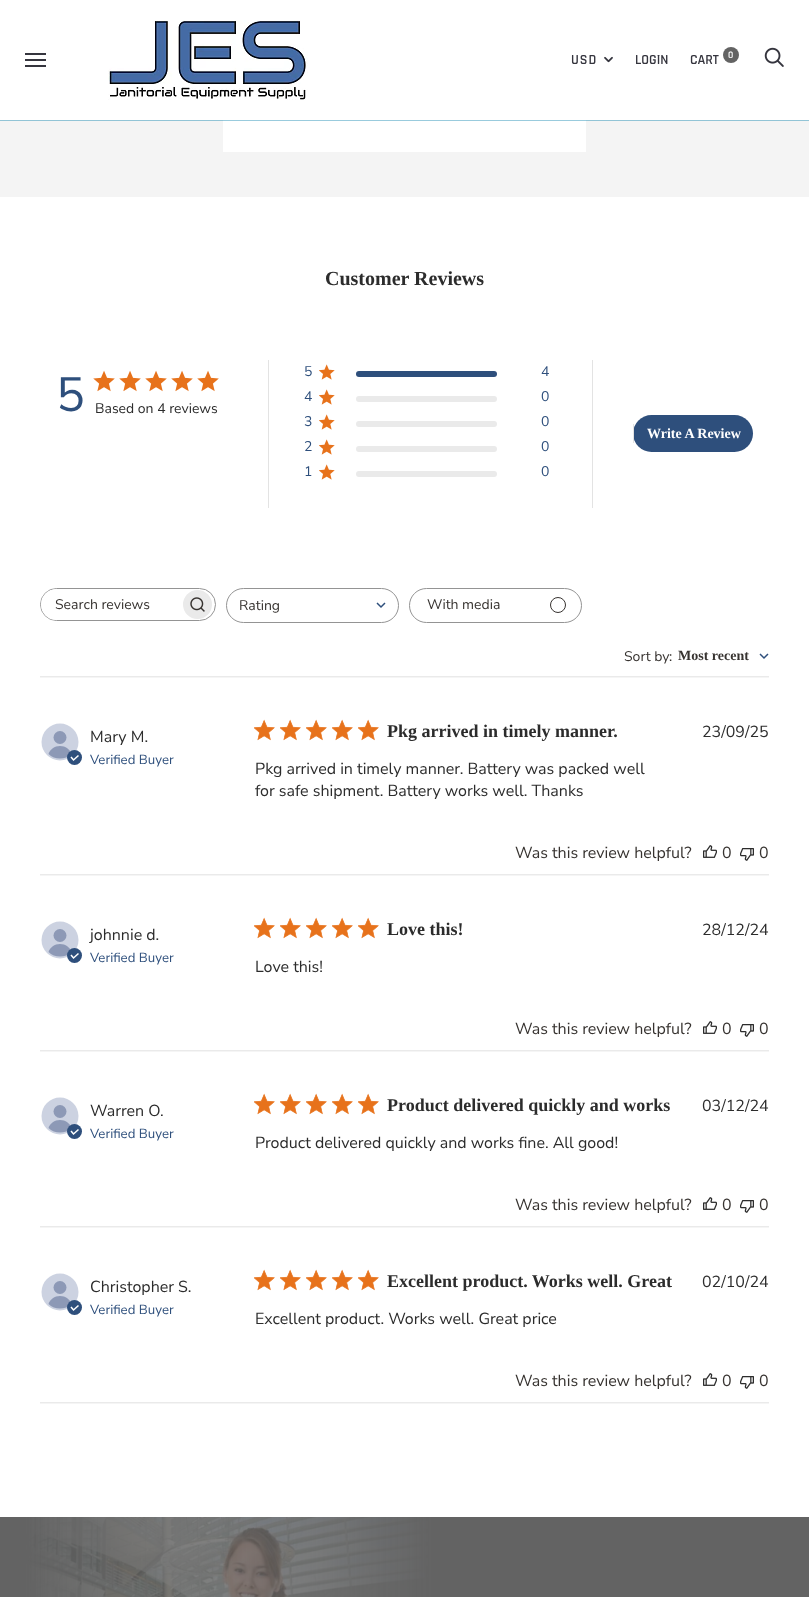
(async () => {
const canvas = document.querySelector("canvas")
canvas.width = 809
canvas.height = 1597
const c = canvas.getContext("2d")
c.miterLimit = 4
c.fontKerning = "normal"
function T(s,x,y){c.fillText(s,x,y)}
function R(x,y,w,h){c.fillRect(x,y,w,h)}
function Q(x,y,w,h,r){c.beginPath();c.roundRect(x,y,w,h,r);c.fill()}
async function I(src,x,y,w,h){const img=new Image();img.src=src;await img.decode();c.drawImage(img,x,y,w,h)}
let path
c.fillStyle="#fff"
R(0,0,809,1597)
c.fillStyle="#f4f4f4"
R(0,120,809,77)
c.fillStyle="#fff"
R(223,120,363,32)
c.fillStyle="#007dab66"
R(0,120,809,1)
c.fillStyle="#35353e"
R(25,53,21,2)
R(25,59,21,2)
R(25,65,21,2)
await I("1.png",108,20,200,80)
c.letterSpacing="1px"
c.font="600 14px Rajdhani"
T("USD",571,64)
await I("2.png",604,56,9,7)
c.letterSpacing="0px"
T("LOGIN",635,64)
T("CART",690,64)
c.fillStyle="#636363"
c.beginPath()
c.arc(731,55,8,0,7)
c.fill()
c.font="600 10px Rajdhani"
c.fillStyle="#fff"
T("0",728,58)
await I("3.png",764,47,20,20)
c.font="bold 20px Liberation Serif"
c.fillStyle="#2c2c2c"
T("Customer Reviews",325,285)
c.font="200 48px Nunito Sans"
c.fillStyle="#2e4f7c"
T("5",56,411)
await I("4.png",93,370,22,22)
await I("4.png",119,370,22,22)
await I("4.png",145,370,22,22)
await I("4.png",171,370,22,22)
await I("4.png",197,370,22,22)
c.font="200 14px Nunito Sans"
c.fillStyle="#2c2c2c"
T("Based on 4 reviews",95,413)
c.fillStyle="#e3e3e3"
R(268,360,1,148)
R(592,360,1,148)
c.fillStyle="#2e4f7c"
T("5",304,376)
await I("5.png",319,364,16,16)
Q(356,371,141,6,3)
T("4",541,376)
T("4",304,401)
await I("5.png",319,389,16,16)
c.fillStyle="#eaeaea"
Q(356,396,141,6,3)
c.fillStyle="#2e4f7c"
T("0",541,401)
T("3",304,426)
await I("5.png",319,414,16,16)
c.fillStyle="#eaeaea"
Q(356,421,141,6,3)
c.fillStyle="#2e4f7c"
T("0",541,426)
T("2",304,451)
await I("5.png",319,439,16,16)
c.fillStyle="#eaeaea"
Q(356,446,141,6,3)
c.fillStyle="#2e4f7c"
T("0",541,451)
T("1",304,476)
await I("5.png",319,464,16,16)
c.fillStyle="#eaeaea"
Q(356,471,141,6,3)
c.fillStyle="#2e4f7c"
T("0",541,476)
Q(633,415,120,37,18.5)
c.fillStyle="#e3e3e3"
R(633,424,1,19)
c.font="bold 14px Liberation Serif"
c.fillStyle="#fff"
T("Write A Review",647,438)
c.beginPath()
c.roundRect(40.5,588.5,175,32,16)
c.strokeStyle="#949494"
c.stroke()
c.beginPath()
c.roundRect(41,589,138,31,[15.5,0,0,15.5])
c.fill()
c.font="200 14px Nunito Sans"
c.fillStyle="#373330"
T("Search reviews",55,609)
c.fillStyle="#eaeaea"
c.beginPath()
c.arc(197.5,604.5,14.5,0,7)
c.fill()
await I("6.png",190,597,15,15)
c.beginPath()
c.roundRect(226.5,588.5,172,34,17)
c.stroke()
path = new Path2D("M377 603l4 4l4-4")
c.strokeStyle="#2e4f7c"
c.lineWidth=1.5
c.stroke(path)
c.fillStyle="#373330"
T("Rating",239,610)
c.beginPath()
c.roundRect(409.5,588.5,172,34,17)
c.strokeStyle="#949494"
c.lineWidth=1
c.stroke()
T("With media",427,609)
c.beginPath()
c.arc(558,605,7.5,0,7)
c.strokeStyle="#373330"
c.stroke()
T("Sort by",624,661)
T(":",669,661)
c.font="bold 14px Liberation Serif"
T("Most recent",678,660)
path = new Path2D("M760 654l4 4l4-4")
c.strokeStyle="#2e4f7c"
c.lineWidth=1.5
c.stroke(path)
await I("7.png",40,676,729,2)
c.fillStyle="#ccd2e1"
c.beginPath()
c.arc(60,742,18.5,0,7)
c.fill()
c.fillStyle="#8d99b6"
c.beginPath()
c.arc(60,737.5,6.5,0,7)
c.fill()
path = new Path2D("M60 746c5.5 0 10 3.5 11.5 8c-6 6-17 6-23 0c1.5-4.5 6-8 11.5-8z")
c.fill(path)
c.fillStyle="#2e4f7c"
c.beginPath()
c.arc(74.5,757.5,7.5,0,7)
c.fill()
path = new Path2D("M71 757l2.5 3l5-4.5")
c.strokeStyle="#fff"
c.stroke(path)
c.font="200 16px Nunito Sans"
c.fillStyle="#2c2c2c"
T("Mary M.",90,742)
c.font="200 13.25px Nunito Sans"
c.fillStyle="#2e4f7c"
T("Verified Buyer",90,764)
await I("8.png",254,719,21,22)
await I("8.png",280,719,21,22)
await I("8.png",306,719,21,22)
await I("8.png",332,719,21,22)
await I("8.png",358,719,21,22)
c.font="bold 18px Liberation Serif"
c.fillStyle="#2c2c2c"
T("Pkg arrived in timely manner.",387,737)
c.font="200 16px Nunito Sans"
T("Pkg arrived in timely manner. Battery was packed well",255,774)
T("for safe shipment. Battery works well. Thanks",255,796)
T("23/09/25",702,737)
c.fillStyle="#373330"
T("Was this review helpful?",515,858)
await I("9.png",703,845,14,13)
T("0",722,858)
await I("10.png",740,848,14,13)
T("0",759,858)
await I("7.png",40,874,729,2)
c.fillStyle="#ccd2e1"
c.beginPath()
c.arc(60,940,18.5,0,7)
c.fill()
c.fillStyle="#8d99b6"
c.beginPath()
c.arc(60,935.5,6.5,0,7)
c.fill()
path = new Path2D("M60 944c5.5 0 10 3.5 11.5 8c-6 6-17 6-23 0c1.5-4.5 6-8 11.5-8z")
c.fill(path)
c.fillStyle="#2e4f7c"
c.beginPath()
c.arc(74.5,955.5,7.5,0,7)
c.fill()
path = new Path2D("M71 955l2.5 3l5-4.5")
c.stroke(path)
c.fillStyle="#2c2c2c"
T("johnnie d.",90,940)
c.font="200 13.25px Nunito Sans"
c.fillStyle="#2e4f7c"
T("Verified Buyer",90,962)
await I("8.png",254,917,21,22)
await I("8.png",280,917,21,22)
await I("8.png",306,917,21,22)
await I("8.png",332,917,21,22)
await I("8.png",358,917,21,22)
c.font="bold 18px Liberation Serif"
c.fillStyle="#2c2c2c"
T("Love this!",387,935)
c.font="200 16px Nunito Sans"
T("Love this!",255,972)
T("28/12/24",702,935)
c.fillStyle="#373330"
T("Was this review helpful?",515,1034)
await I("9.png",703,1021,14,13)
T("0",722,1034)
await I("10.png",740,1024,14,13)
T("0",759,1034)
await I("7.png",40,1050,729,2)
c.fillStyle="#ccd2e1"
c.beginPath()
c.arc(60,1116,18.5,0,7)
c.fill()
c.fillStyle="#8d99b6"
c.beginPath()
c.arc(60,1111.5,6.5,0,7)
c.fill()
path = new Path2D("M60 1120c5.5 0 10 3.5 11.5 8c-6 6-17 6-23 0c1.5-4.5 6-8 11.5-8z")
c.fill(path)
c.fillStyle="#2e4f7c"
c.beginPath()
c.arc(74.5,1131.5,7.5,0,7)
c.fill()
path = new Path2D("M71 1131l2.5 3l5-4.5")
c.stroke(path)
c.fillStyle="#2c2c2c"
T("Warren O.",90,1116)
c.font="200 13.25px Nunito Sans"
c.fillStyle="#2e4f7c"
T("Verified Buyer",90,1138)
await I("8.png",254,1093,21,22)
await I("8.png",280,1093,21,22)
await I("8.png",306,1093,21,22)
await I("8.png",332,1093,21,22)
await I("8.png",358,1093,21,22)
c.font="bold 18px Liberation Serif"
c.fillStyle="#2c2c2c"
T("Product delivered quickly and works",387,1111)
c.font="200 16px Nunito Sans"
T("Product delivered quickly and works fine. All good!",255,1148)
T("03/12/24",702,1111)
c.fillStyle="#373330"
T("Was this review helpful?",515,1210)
await I("9.png",703,1197,14,13)
T("0",722,1210)
await I("10.png",740,1200,14,13)
T("0",759,1210)
await I("7.png",40,1226,729,2)
c.fillStyle="#ccd2e1"
c.beginPath()
c.arc(60,1292,18.5,0,7)
c.fill()
c.fillStyle="#8d99b6"
c.beginPath()
c.arc(60,1287.5,6.5,0,7)
c.fill()
path = new Path2D("M60 1296c5.5 0 10 3.5 11.5 8c-6 6-17 6-23 0c1.5-4.5 6-8 11.5-8z")
c.fill(path)
c.fillStyle="#2e4f7c"
c.beginPath()
c.arc(74.5,1307.5,7.5,0,7)
c.fill()
path = new Path2D("M71 1307l2.5 3l5-4.5")
c.stroke(path)
c.fillStyle="#2c2c2c"
T("Christopher S.",90,1292)
c.font="200 13.25px Nunito Sans"
c.fillStyle="#2e4f7c"
T("Verified Buyer",90,1314)
await I("8.png",254,1269,21,22)
await I("8.png",280,1269,21,22)
await I("8.png",306,1269,21,22)
await I("8.png",332,1269,21,22)
await I("8.png",358,1269,21,22)
c.font="bold 18px Liberation Serif"
c.fillStyle="#2c2c2c"
T("Excellent product. Works well. Great",387,1287)
c.font="200 16px Nunito Sans"
T("Excellent product. Works well. Great price",255,1324)
T("02/10/24",702,1287)
c.fillStyle="#373330"
T("Was this review helpful?",515,1386)
await I("9.png",703,1373,14,13)
T("0",722,1386)
await I("10.png",740,1376,14,13)
T("0",759,1386)
await I("7.png",40,1402,729,2)
c.fillStyle="#636363"
R(0,1517,809,80)
await I("11.png",25,1517,407,80)
})()
